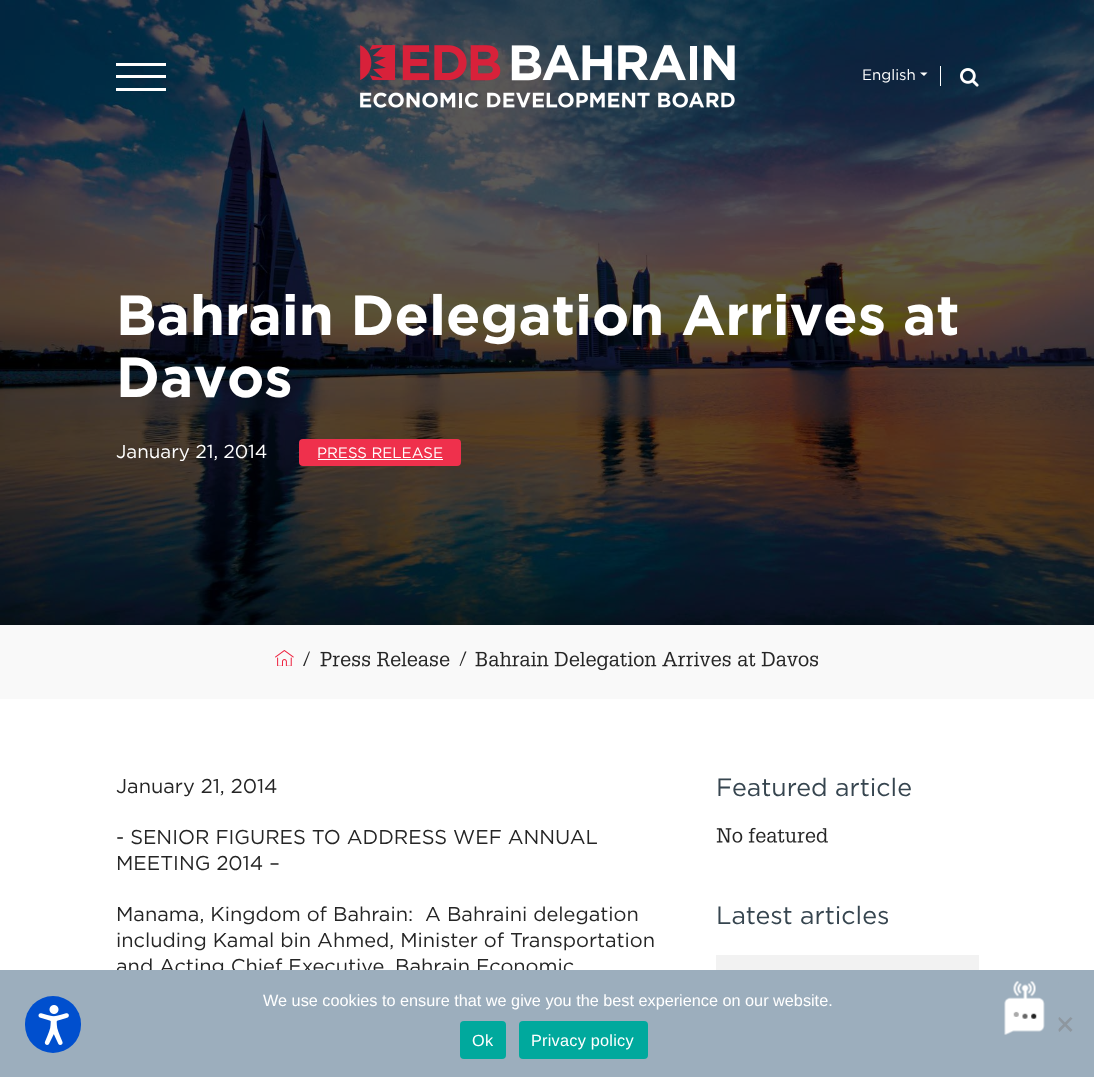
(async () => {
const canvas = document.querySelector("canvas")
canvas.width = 1094
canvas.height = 1077
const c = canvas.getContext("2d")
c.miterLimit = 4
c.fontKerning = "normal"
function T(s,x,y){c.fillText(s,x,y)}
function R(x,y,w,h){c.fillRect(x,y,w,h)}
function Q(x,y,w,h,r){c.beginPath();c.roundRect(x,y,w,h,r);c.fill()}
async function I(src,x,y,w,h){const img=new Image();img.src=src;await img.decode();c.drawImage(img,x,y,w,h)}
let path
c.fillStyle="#fff"
R(0,0,1094,1077)
c.font="20px Gotham"
c.fillStyle="#252525"
T("and Acting Chief Executive, Bahrain Economic",116,973)
c.fillStyle="#9caebd"
R(0,970,1094,107)
c.fillStyle="#004fce"
Q(25,996,56,57,28)
await I("1.png",38,1005,31,40)
await I("4.png",0,0,1094,625)
c.fillStyle="#fff"
R(116,63,50,3)
R(116,75,50,3)
R(116,88,50,3)
await I("2.png",360,45,375,63)
R(940,66,1,20)
c.font="15px Gotham"
T("English",862,80)
path = new Path2D("M920 72.5h7.5l-3.5 3.5z")
c.fill(path)
await I("3.png",960,68,19,19)
c.font="bold 56.25px Gotham"
T("Bahrain Delegation Arrives at",116,335)
T("Davos",116,397)
c.font="18.75px Gotham"
T("January 21, 2014",116,458)
c.fillStyle="#ef304c"
Q(299,439,162,27,4)
c.font="15px Gotham"
c.fillStyle="#fff"
T("PRESS RELEASE",317,458)
R(318,459,125,1)
c.fillStyle="#f9f9f9"
R(0,625,1094,74)
await I("5.png",275,650,19,16)
c.fillStyle="#252525"
path = new Path2D("M309 651.5h1l-5.5 14.5h-1.5z")
c.fill(path)
await I("6.png",320,651,130,16)
path = new Path2D("M465 651.5h1.5l-6 14.5h-1z")
c.fill(path)
await I("7.png",475,651,343,20)
c.font="20px Gotham"
T("January 21, 2014",116,793)
T("- SENIOR FIGURES TO ADDRESS WEF ANNUAL",116,844)
T("MEETING 2014 –",116,870)
T("Manama, Kingdom of Bahrain:  A Bahraini delegation",116,921)
T("including Kamal bin Ahmed, Minister of Transportation",116,947)
c.font="25px Gotham"
c.fillStyle="#36454f"
T("Featured article",716,796)
await I("8.png",716,827,112,16)
T("Latest articles",716,924)
c.fillStyle="#f2f2f2"
R(716,955,263,15)
c.font="16.25px Liberation Sans"
c.fillStyle="#fff"
T("We use cookies to ensure that we give you the best experience on our website.",263,1006)
c.fillStyle="#8e979f"
path = new Path2D("M1070.5 1017l2 1.5l-13 13.5l-2-2z")
c.fill(path)
path = new Path2D("M1057.5 1018.5l2-1.5l13 13l-2 2z")
c.fill(path)
c.fillStyle="#00a99d"
Q(460,1021,46,38,4)
c.letterSpacing="0.25px"
c.fillStyle="#fff"
T("Ok",472,1046)
c.fillStyle="#00a99d"
Q(519,1021,129,38,4)
c.fillStyle="#fff"
T("Privacy policy",531,1046)
await I("9.png",1004,981,55,54)
})()
